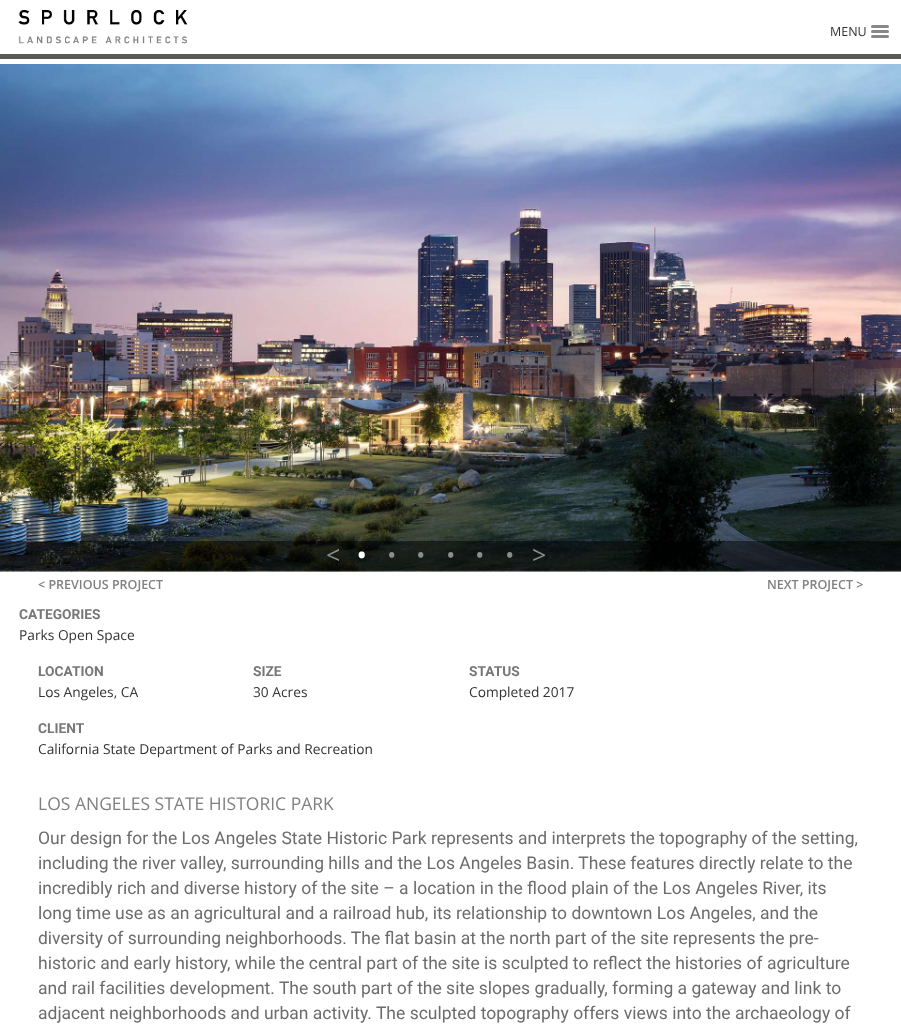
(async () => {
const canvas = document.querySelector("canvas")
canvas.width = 901
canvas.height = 1035
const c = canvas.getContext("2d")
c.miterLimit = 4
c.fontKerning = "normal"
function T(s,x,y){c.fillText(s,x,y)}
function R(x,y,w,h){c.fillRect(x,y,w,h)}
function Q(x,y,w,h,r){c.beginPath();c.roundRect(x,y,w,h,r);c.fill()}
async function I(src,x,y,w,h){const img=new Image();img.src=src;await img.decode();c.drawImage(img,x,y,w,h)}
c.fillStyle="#fff"
R(0,0,901,1035)
c.fillStyle="#595955"
R(0,54,901,5)
await I("1.png",18,10,170,34)
c.fillStyle="#888"
Q(871,25,18,3,1.5)
c.font="12.5px Open Sans"
c.fillStyle="#333"
T("MENU",830,36)
c.fillStyle="#888"
Q(871,30,18,3,1.5)
Q(871,35,18,3,1.5)
await I("2.png",0,64,901,508)
c.fillStyle="#00000080"
R(0,541,901,30)
c.font="25px Open Sans"
c.fillStyle="#8c8e8c"
T("<",326,564)
c.font="600 25px Open Sans"
c.fillStyle="#fff"
T("•",357,564)
c.font="25px Open Sans"
c.fillStyle="#8c8e8c"
T("•",387,564)
T("•",416,564)
T("•",446,564)
T("•",475,564)
T("•",505,564)
T(">",532,564)
c.font="600 12.5px Open Sans"
c.fillStyle="#808080"
T("< PREVIOUS PROJECT",38,589)
T("NEXT PROJECT >",767,589)
c.font="bold 13.75px Roboto"
c.fillStyle="#777"
T("CATEGORIES",19,619)
c.font="13.75px Open Sans"
c.fillStyle="#333"
T("Parks Open Space",19,640)
c.font="bold 13.75px Roboto"
c.fillStyle="#777"
T("LOCATION",38,676)
c.font="13.75px Open Sans"
c.fillStyle="#333"
T("Los Angeles, CA",38,697)
c.font="bold 13.75px Roboto"
c.fillStyle="#777"
T("SIZE",253,676)
c.font="13.75px Open Sans"
c.fillStyle="#333"
T("30 Acres",253,697)
c.font="bold 13.75px Roboto"
c.fillStyle="#777"
T("STATUS",469,676)
c.font="13.75px Open Sans"
c.fillStyle="#333"
T("Completed 2017",469,697)
c.font="bold 13.75px Roboto"
c.fillStyle="#777"
T("CLIENT",38,733)
c.font="13.75px Open Sans"
c.fillStyle="#333"
T("California State Department of Parks and Recreation",38,754)
c.font="17.5px Open Sans"
c.fillStyle="#808080"
T("LOS ANGELES STATE HISTORIC PARK",38,810)
c.font="17.5px Roboto"
c.fillStyle="#6c6c6c"
T("Our design for the Los Angeles State Historic Park represents and interprets the topography of the setting,",38,844)
T("including the river valley, surrounding hills and the Los Angeles Basin. These features directly relate to the",38,869)
T("incredibly rich and diverse history of the site – a location in the flood plain of the Los Angeles River, its",38,894)
T("long time use as an agricultural and a railroad hub, its relationship to downtown Los Angeles, and the",38,919)
T("diversity of surrounding neighborhoods. The flat basin at the north part of the site represents the pre-",38,944)
T("historic and early history, while the central part of the site is sculpted to reflect the histories of agriculture",38,969)
T("and rail facilities development. The south part of the site slopes gradually, forming a gateway and link to",38,994)
T("adjacent neighborhoods and urban activity. The sculpted topography offers views into the archaeology of",38,1019)
})()
